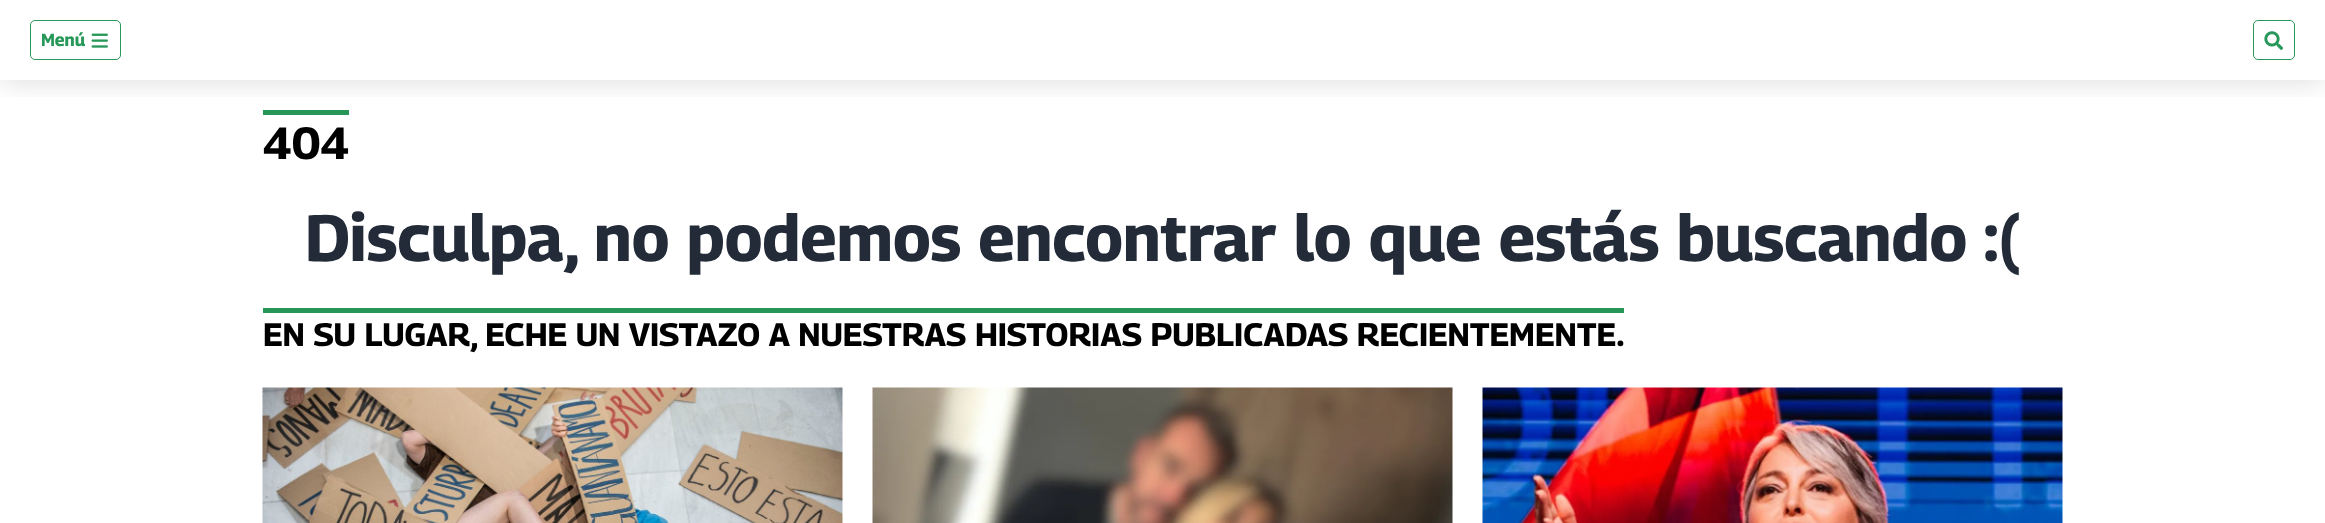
(async () => {
const canvas = document.querySelector("canvas")
canvas.width = 2325
canvas.height = 523
const c = canvas.getContext("2d")
c.miterLimit = 4
c.fontKerning = "normal"
function T(s,x,y){c.fillText(s,x,y)}
function R(x,y,w,h){c.fillRect(x,y,w,h)}
async function I(src,x,y,w,h){const img=new Image();img.src=src;await img.decode();c.drawImage(img,x,y,w,h)}
c.fillStyle="#fff"
R(0,0,2325,523)
c.fillStyle="#269757"
R(263,110,86,5)
c.save()
c.beginPath()
c.rect(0,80,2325,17)
c.clip()
c.fillStyle="#00000026"
c.filter="blur(15px)"
c.beginPath()
c.rect(0,0,2325,80)
c.fill()
c.filter="none"
c.restore()
c.beginPath()
c.roundRect(30.5,20.5,90,39,4.5)
c.strokeStyle="#27985a"
c.stroke()
c.font="bold 17.5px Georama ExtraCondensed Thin"
c.fillStyle="#27985a"
T("Menú",41,46)
await I("1.png",91,33,17,15)
c.beginPath()
c.roundRect(2253.5,20.5,41,39,4.5)
c.stroke()
await I("2.png",2264,31,20,19)
c.font="bold 45px Georama ExtraCondensed Thin"
c.fillStyle="#000"
T("404",263,159)
c.font="bold 65px Georama ExtraCondensed Thin"
c.fillStyle="#232b39"
T("Disculpa, no podemos encontrar lo que estás buscando :(",305,261)
c.fillStyle="#269757"
R(263,308,1361,5)
c.font="bold 32.5px Georama ExtraCondensed Thin"
c.fillStyle="#000"
T("EN SU LUGAR, ECHE UN VISTAZO A NUESTRAS HISTORIAS PUBLICADAS RECIENTEMENTE.",263,346)
await I("3.png",262,387,581,136)
await I("4.png",872,387,581,136)
await I("5.png",1482,387,581,136)
})()
